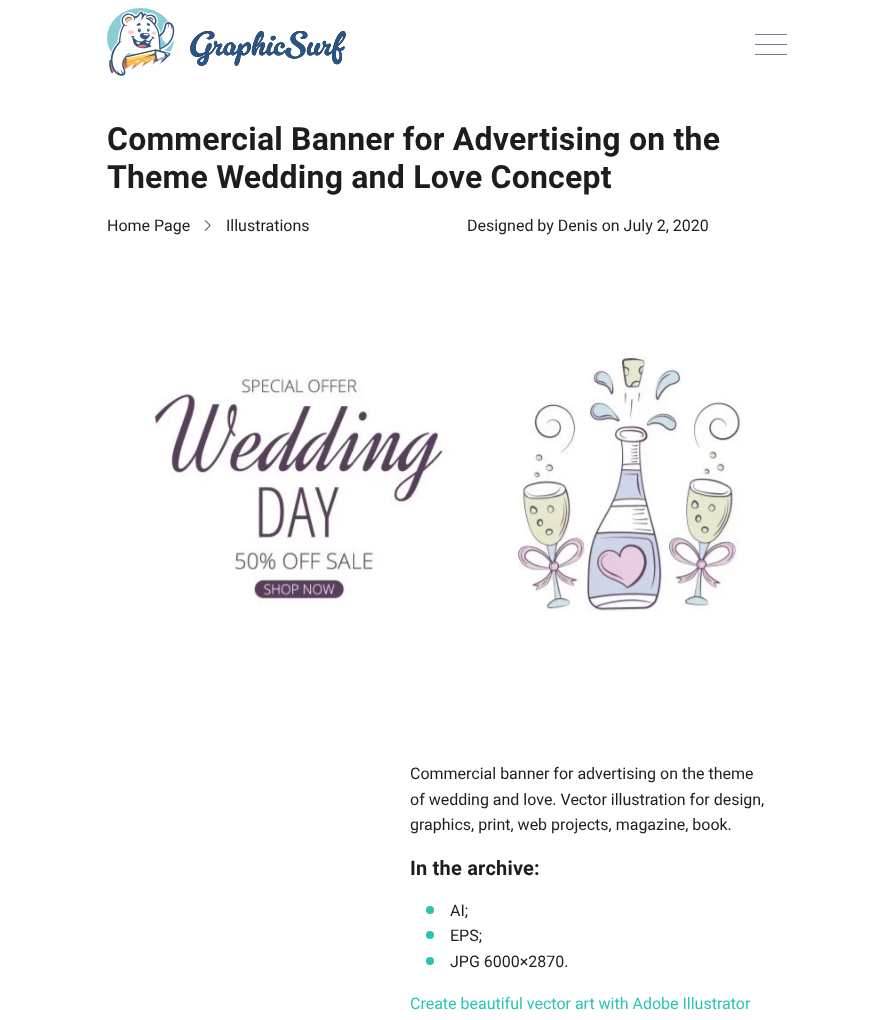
(async () => {
const canvas = document.querySelector("canvas")
canvas.width = 893
canvas.height = 1020
const c = canvas.getContext("2d")
c.miterLimit = 4
c.fontKerning = "normal"
function T(s,x,y){c.fillText(s,x,y)}
function R(x,y,w,h){c.fillRect(x,y,w,h)}
async function I(src,x,y,w,h){const img=new Image();img.src=src;await img.decode();c.drawImage(img,x,y,w,h)}
c.fillStyle="#fff"
R(0,0,893,1020)
await I("1.png",107,8,239,68)
c.fillStyle="#768093"
R(755,44,32,1)
R(755,34,32,1)
R(755,54,32,1)
c.letterSpacing="0.2px"
c.font="bold 32px Roboto"
c.fillStyle="#1d1d1f"
T("Commercial Banner for Advertising on the",107,150)
T("Theme Wedding and Love Concept",107,188)
c.letterSpacing="0px"
c.font="16px Roboto"
T("Home Page",107,231)
await I("2.png",204,220,7,11)
T("Illustrations",226,231)
T("Designed by Denis on July 2, 2020",467,231)
await I("3.png",154,355,588,257)
T("Commercial banner for advertising on the theme",410,779)
T("of wedding and love. Vector illustration for design,",410,805)
T("graphics, print, web projects, magazine, book.",410,830)
c.letterSpacing="0.2px"
c.font="bold 20px Roboto"
T("In the archive:",410,875)
c.fillStyle="#2cc3b4"
c.beginPath()
c.arc(430,910,4,0,7)
c.fill()
c.letterSpacing="0px"
c.font="16px Roboto"
c.fillStyle="#1d1d1f"
T("AI;",450,916)
c.fillStyle="#2cc3b4"
c.beginPath()
c.arc(430,935,4,0,7)
c.fill()
c.fillStyle="#1d1d1f"
T("EPS;",450,941)
c.fillStyle="#2cc3b4"
c.beginPath()
c.arc(430,961,4,0,7)
c.fill()
c.fillStyle="#1d1d1f"
T("JPG 6000×2870.",450,967)
c.fillStyle="#2cc3b4"
T("Create beautiful vector art with Adobe Illustrator",410,1009)
})()
